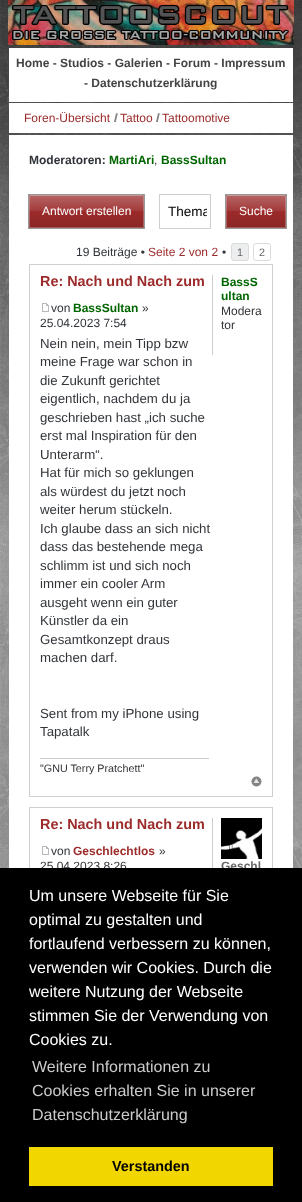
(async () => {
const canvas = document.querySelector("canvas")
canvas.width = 302
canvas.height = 1202
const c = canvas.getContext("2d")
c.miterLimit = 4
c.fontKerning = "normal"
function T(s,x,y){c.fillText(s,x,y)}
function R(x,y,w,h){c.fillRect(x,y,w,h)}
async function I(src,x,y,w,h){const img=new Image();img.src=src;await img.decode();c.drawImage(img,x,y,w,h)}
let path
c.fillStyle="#fff"
R(0,0,302,1202)
await I("1.png",0,500,302,368)
await I("2.png",0,0,302,500)
await I("3.png",8,0,286,45)
await I("4.png",11,5,279,35)
R(9,48,284,54)
c.font="bold 12px Liberation Sans"
c.fillStyle="#444"
T("Home - Studios - Galerien - Forum - Impressum",16,67)
T("- Datenschutzerklärung",84,87)
c.fillStyle="#fff"
R(9,103,284,30)
c.font="12px Liberation Sans"
c.fillStyle="#9c2b2b"
T("Foren-Übersicht",24,122)
await I("5.png",114,113,4,9)
T("Tattoo",120,122)
await I("5.png",156,113,4,9)
T("Tattoomotive",162,122)
c.fillStyle="#fff"
R(9,135,284,733)
c.font="bold 12px Liberation Sans"
c.fillStyle="#313439"
T("Moderatoren:",29,164)
c.fillStyle="#060"
T("MartiAri",109,164)
c.font="12px Liberation Sans"
c.fillStyle="#313439"
T(",",154,164)
c.font="bold 12px Liberation Sans"
c.fillStyle="#060"
T("BassSultan",161,164)
c.strokeStyle="#999"
c.strokeRect(28.5,194.5,116,34)
c.fillStyle="#9c2b2b"
R(29,195,115,33)
await I("6.png",29,196,115,32)
c.fillStyle="#c59898"
path = new Path2D("M29 195h115l-1 1h-113z")
c.fill(path)
c.fillStyle="#e1e1e14d"
path = new Path2D("M144 195v33l-1-1v-31z")
c.fill(path)
path = new Path2D("M144 228h-115l1-1h113z")
c.fill(path)
path = new Path2D("M29 228v-33l1 1v31z")
c.fill(path)
c.font="12px Liberation Sans"
c.fillStyle="#fff"
T("Antwort erstellen",42,215)
c.strokeStyle="#cfcfcf"
c.strokeRect(159.5,194.5,51,34)
c.save()
c.beginPath()
c.rect(168,204,39,15)
c.clip()
c.font="13.5px Liberation Sans"
c.fillStyle="#000"
T("Thema",168,216)
c.restore()
c.strokeStyle="#999"
c.strokeRect(225.5,194.5,61,34)
c.fillStyle="#9c2b2b"
R(226,195,60,33)
await I("7.png",226,196,60,32)
c.fillStyle="#c59898"
path = new Path2D("M226 195h60l-1 1h-58z")
c.fill(path)
c.fillStyle="#e1e1e14d"
path = new Path2D("M286 195v33l-1-1v-31z")
c.fill(path)
path = new Path2D("M286 228h-60l1-1h58z")
c.fill(path)
path = new Path2D("M226 228v-33l1 1v31z")
c.fill(path)
c.fillStyle="#fff"
T("Suche",239,215)
c.fillStyle="#313439"
T("19 Beiträge •",76,256)
c.fillStyle="#9c2b2b"
T("Seite 2 von 2",148,256)
c.fillStyle="#313439"
T("•",222,256)
c.fillStyle="#eceef0"
c.beginPath()
c.roundRect(231.5,243.5,17,17,2.5)
c.fill()
c.strokeStyle="#dbdbdb"
c.stroke()
c.font="10.75px Liberation Sans"
c.fillStyle="#666"
T("1",237,256)
c.beginPath()
c.roundRect(253.5,243.5,17,17,2.5)
c.stroke()
T("2",259,256)
c.strokeStyle="#cfcfcf"
c.strokeRect(29.5,264.5,243,532)
c.font="bold 14.4px Liberation Sans"
c.fillStyle="#9c2b2b"
T("Re: Nach und Nach zum",40,286)
await I("8.png",42,303,7,9)
c.font="12px Liberation Sans"
c.fillStyle="#313439"
T("von",51,312)
c.font="bold 12px Liberation Sans"
c.fillStyle="#060"
T("BassSultan",73,312)
c.font="12px Liberation Sans"
c.fillStyle="#313439"
T("»",142,312)
T("25.04.2023 7:54",40,327)
c.font="13.25px Liberation Sans"
T("Nein nein, mein Tipp bzw",40,348)
T("meine Frage war schon in",40,366)
T("die Zukunft gerichtet",40,385)
T("eigentlich, nachdem du ja",40,403)
T("geschrieben hast „ich suche",40,422)
T("erst mal Inspiration für den",40,440)
T("Unterarm“.",40,459)
T("Hat für mich so geklungen",40,477)
T("als würdest du jetzt noch",40,496)
T("weiter herum stückeln.",40,514)
T("Ich glaube dass an sich nicht",40,533)
T("dass das bestehende mega",40,551)
T("schlimm ist und sich noch",40,570)
T("immer ein cooler Arm",40,588)
T("ausgeht wenn ein guter",40,607)
T("Künstler da ein",40,625)
T("Gesamtkonzept draus",40,644)
T("machen darf.",40,662)
T("Sent from my iPhone using",40,718)
T("Tapatalk",40,736)
c.fillStyle="#ccc"
R(40,758,169,1)
c.font="10.75px Liberation Sans"
c.fillStyle="#313439"
T("\"GNU Terry Pratchett\"",40,772)
c.fillStyle="#ccc"
R(212,275,1,80)
c.font="bold 12px Liberation Sans"
c.fillStyle="#060"
T("BassS",221,286)
T("ultan",221,300)
c.font="12px Liberation Sans"
c.fillStyle="#313439"
T("Modera",221,315)
T("tor",221,329)
await I("9.png",251,776,11,11)
c.strokeRect(29.5,807.5,243,202)
c.font="bold 14.4px Liberation Sans"
c.fillStyle="#9c2b2b"
T("Re: Nach und Nach zum",40,829)
await I("8.png",42,846,7,9)
c.font="12px Liberation Sans"
c.fillStyle="#313439"
T("von",51,855)
c.font="bold 12px Liberation Sans"
c.fillStyle="#9c2b2b"
T("Geschlechtlos",73,855)
c.font="12px Liberation Sans"
c.fillStyle="#313439"
T("»",159,855)
T("25.04.2023 8:26",40,870)
c.fillStyle="#ccc"
R(212,818,1,50)
await I("10.png",221,818,41,41)
c.font="bold 12px Liberation Sans"
c.fillStyle="#666"
T("Geschl",221,870)
c.fillStyle="#000"
R(0,868,302,334)
c.font="16px Liberation Sans"
c.fillStyle="#fff"
T("Um unsere Webseite für Sie",29,901)
T("optimal zu gestalten und",29,925)
T("fortlaufend verbessern zu können,",29,949)
T("verwenden wir Cookies. Durch die",29,973)
T("weitere Nutzung der Webseite",29,997)
T("stimmen Sie der Verwendung von",29,1021)
T("Cookies zu.",29,1045)
c.fillStyle="#ccc"
T("Weitere Informationen zu",32,1072)
T("Cookies erhalten Sie in unserer",32,1096)
T("Datenschutzerklärung",32,1120)
c.fillStyle="#f1d600"
R(29,1147,244,39)
c.font="bold 14.4px Liberation Sans"
c.fillStyle="#000"
T("Verstanden",112,1171)
})()
